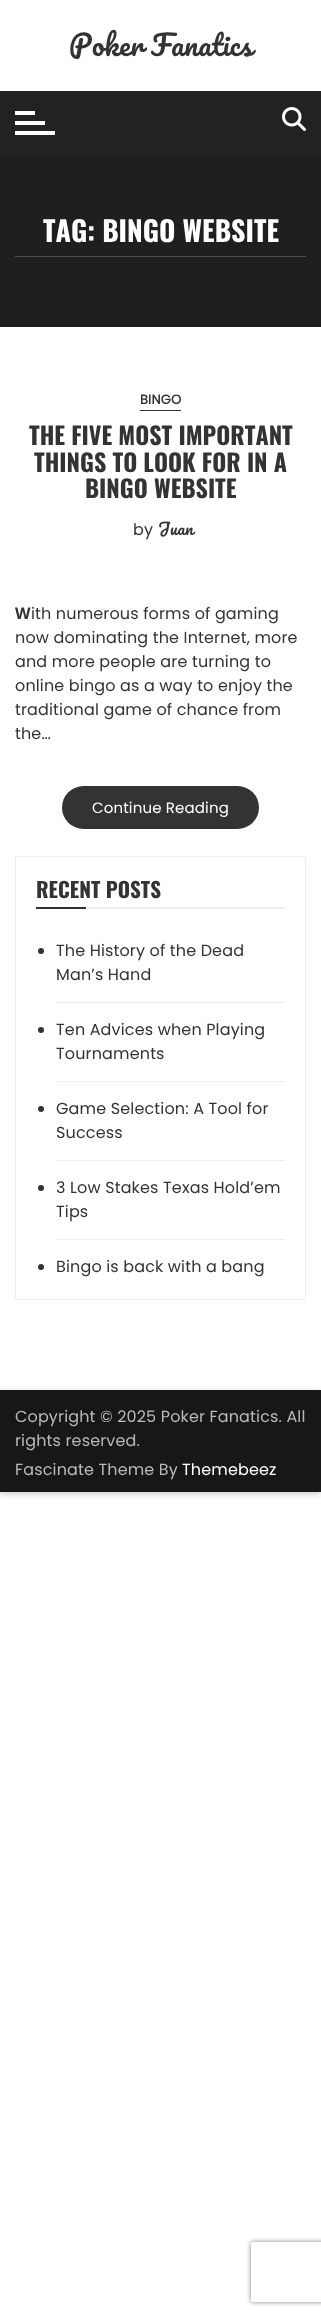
(async () => {
const canvas = document.querySelector("canvas")
canvas.width = 321
canvas.height = 2316
const c = canvas.getContext("2d")
c.miterLimit = 4
c.fontKerning = "none"
function T(s,x,y){c.fillText(s,x,y)}
function R(x,y,w,h){c.fillRect(x,y,w,h)}
function Q(x,y,w,h,r){c.beginPath();c.roundRect(x,y,w,h,r);c.fill()}
async function I(src,x,y,w,h){const img=new Image();img.src=src;await img.decode();c.drawImage(img,x,y,w,h)}
let path
c.fillStyle="#fff"
R(0,0,321,2316)
c.letterSpacing="0.15px"
c.font="28px Pacifico"
c.fillStyle="#333"
T("Poker Fanatics",69,56)
c.fillStyle="#222"
R(0,91,321,64)
c.fillStyle="#fff"
R(15,111,20,4)
R(15,121,30,4)
R(15,131,40,4)
await I("1.png",282,107,24,24)
c.fillStyle="#1f1f1f"
R(0,155,321,172)
c.fillStyle="#4c4c4c"
R(15,256,291,1)
c.letterSpacing="0px"
c.font="bold 28px Oswald"
c.fillStyle="#fff"
T("TAG: BINGO WEBSITE",43,242)
c.fillStyle="#333"
R(140,410,41,1)
c.letterSpacing="0.15px"
c.font="bold 13px Poppins"
T("BINGO",140,404)
c.letterSpacing="0px"
c.font="bold 24px Oswald"
T("THE FIVE MOST IMPORTANT",29,445)
T("THINGS TO LOOK FOR IN A",34,472)
T("BINGO WEBSITE",85,498)
c.letterSpacing="0.15px"
c.font="16px Poppins"
T("by",133,535)
c.font="16px Pacifico"
T("Juan",158,535)
c.font="bold 16px Noto Sans"
T("W",15,619)
c.font="16px Poppins"
T("ith numerous forms of gaming",31,619)
T("now dominating the Internet, more",15,643)
T("and more people are turning to",15,667)
T("online bingo as a way to enjoy the",15,691)
T("traditional game of chance from",15,715)
T("the…",15,739)
Q(62,786,197,43,21.5)
c.font="15px Poppins"
c.fillStyle="#fff"
T("Continue Reading",92,813)
c.strokeStyle="#eee"
c.strokeRect(15.5,856.5,290,443)
c.fillStyle="#eee"
R(86,907,199,2)
c.letterSpacing="0px"
c.font="bold 21px Oswald"
c.fillStyle="#333"
T("RECENT POSTS",36,898)
R(36,907,50,2)
c.fillStyle="#eee"
R(56,1002,229,1)
c.fillStyle="#333"
c.beginPath()
c.arc(41,951,3,0,7)
c.fill()
c.letterSpacing="0.15px"
c.font="16px Poppins"
T("The History of the Dead",56,956)
T("Man’s Hand",56,980)
c.fillStyle="#eee"
R(56,1081,229,1)
c.fillStyle="#333"
c.beginPath()
c.arc(41,1030,3,0,7)
c.fill()
T("Ten Advices when Playing",56,1035)
T("Tournaments",56,1059)
c.fillStyle="#eee"
R(56,1160,229,1)
c.fillStyle="#333"
c.beginPath()
c.arc(41,1109,3,0,7)
c.fill()
T("Game Selection: A Tool for",56,1114)
T("Success",56,1138)
c.fillStyle="#eee"
R(56,1239,229,1)
c.fillStyle="#333"
c.beginPath()
c.arc(41,1188,3,0,7)
c.fill()
T("3 Low Stakes Texas Hold’em",56,1193)
T("Tips",56,1217)
c.beginPath()
c.arc(41,1267,3,0,7)
c.fill()
T("Bingo is back with a bang",56,1272)
c.fillStyle="#00000033"
c.filter="blur(3px)"
c.beginPath()
c.rect(0,1392,321,102)
c.fill()
c.filter="none"
c.fillStyle="#171717"
R(0,1390,321,102)
c.fillStyle="#b9b9b9"
T("Copyright © 2025 Poker Fanatics. All",15,1422)
T("rights reserved.",15,1446)
T("Fascinate Theme By",15,1475)
c.fillStyle="#fff"
T("Themebeez",182,1475)
c.save()
path = new Path2D("M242 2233h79v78h-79zm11 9h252c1 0 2 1 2 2v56c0 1-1 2-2 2h-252c-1 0-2-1-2-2v-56c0-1 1-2 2-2z")
c.clip(path,"evenodd")
c.fillStyle="#808080"
c.filter="blur(2.5px)"
c.beginPath()
c.roundRect(251,2242,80,60,2)
c.fill()
c.filter="none"
c.restore()
})()
